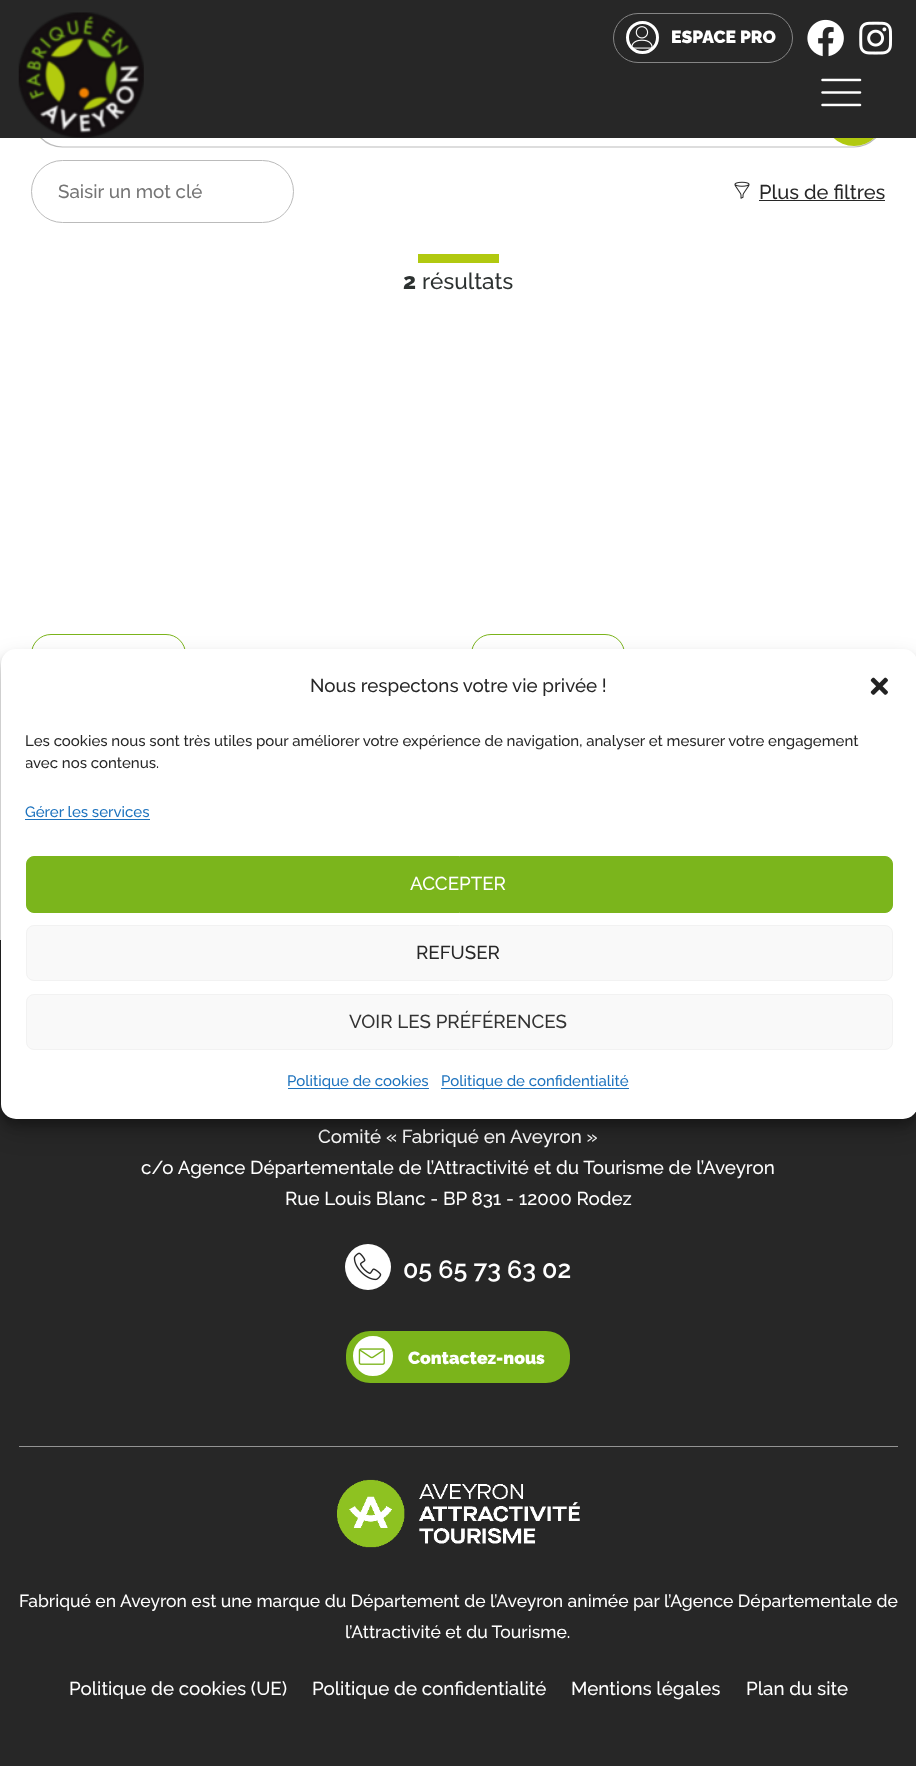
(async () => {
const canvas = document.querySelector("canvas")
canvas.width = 916
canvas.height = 1766
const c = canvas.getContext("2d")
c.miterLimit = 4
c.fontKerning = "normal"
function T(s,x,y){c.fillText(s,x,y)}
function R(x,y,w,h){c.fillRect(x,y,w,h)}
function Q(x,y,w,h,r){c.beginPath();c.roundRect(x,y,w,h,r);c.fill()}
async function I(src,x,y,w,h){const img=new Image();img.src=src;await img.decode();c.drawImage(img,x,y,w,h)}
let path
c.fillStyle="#fff"
R(0,0,916,1766)
path = new Path2D("M875.5 138c-6 5.5-13.5 9-21.5 9h-791.5c-8 0-16-3.5-21.5-9")
c.strokeStyle="#bbb"
c.lineWidth=1.2
c.stroke(path)
path = new Path2D("M41 138c-19.5-19-5.5-52.5 21.5-52.5h791.5c4 0 8 1 11.5 2.5c20 8 25 34.5 10 50")
c.strokeStyle="#b1c910"
c.stroke(path)
c.fillStyle="#b1c910"
c.beginPath()
c.arc(854,116,30,0,7)
c.fill()
c.fillStyle="#272727"
R(0,0,916,138)
await I("1.png",18,12,126,126)
c.beginPath()
c.roundRect(613.5,13.5,179,49,24.5)
c.strokeStyle="#858585"
c.lineWidth=1
c.stroke()
c.beginPath()
c.arc(642.5,37.5,15,0,7)
c.strokeStyle="#fff"
c.lineWidth=3
c.stroke()
await I("2.png",631,26,22,23)
c.font="900 17.5px Raleway"
c.fillStyle="#fff"
T("ESPACE PRO",671,43)
await I("3.png",807,19,37,38)
await I("4.png",859,21,34,34)
await I("5.png",821,78,41,29)
c.beginPath()
c.roundRect(31.5,160.5,262,62,31)
c.strokeStyle="#bbb"
c.lineWidth=1
c.stroke()
c.font="500 18.75px Raleway"
c.fillStyle="#757575"
T("Saisir un mot clé",58,198)
await I("6.png",734,181,16,18)
c.font="500 20px Raleway"
c.fillStyle="#272727"
T("Plus de filtres",759,199)
R(759,200,126,1)
c.fillStyle="#b1c910"
R(418,254,81,9)
c.font="800 22.5px Raleway"
c.fillStyle="#2c3130"
T("2",403,289)
c.font="500 22.5px Raleway"
T("résultats",422,289)
c.beginPath()
c.roundRect(31.5,634.5,154,39,19.5)
c.strokeStyle="#7bb41b"
c.stroke()
c.beginPath()
c.roundRect(471.5,634.5,153,39,19.5)
c.stroke()
c.fillStyle="#272727"
R(0,940,916,826)
c.font="500 18.75px Raleway"
c.fillStyle="#fff"
T("Comité « Fabriqué en Aveyron »",318,1143)
T("c/o Agence Départementale de l’Attractivité et du Tourisme de l’Aveyron",141,1174)
T("Rue Louis Blanc - BP 831 - 12000 Rodez",285,1205)
c.beginPath()
c.arc(368,1267,23,0,7)
c.fill()
await I("7.png",353,1252,29,29)
c.font="600 25px Raleway"
T("05 65 73 63 02",403,1278)
c.fillStyle="#7bb41b"
Q(346,1331,224,52,24)
c.fillStyle="#fff"
c.beginPath()
c.arc(373,1356,21.5,0,7)
c.fill()
c.lineWidth=3
c.stroke()
await I("8.png",358,1348,27,17)
c.font="900 17.5px Raleway"
T("Contactez-nous",408,1364)
c.fillStyle="#939393"
R(19,1446,879,1)
await I("9.png",337,1479,243,69)
c.font="500 17.5px Raleway"
c.fillStyle="#fff"
T("Fabriqué en Aveyron est une marque du Département de l’Aveyron animée par l’Agence Départementale de",19,1607)
T("l’Attractivité et du Tourisme.",345,1638)
c.font="500 18.75px Raleway"
T("Politique de cookies (UE)",69,1695)
T("Politique de confidentialité",312,1695)
T("Mentions légales",571,1695)
T("Plan du site",746,1695)
c.fillStyle="#0000003b"
c.filter="blur(4px)"
c.beginPath()
c.roundRect(1,656,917,470,15)
c.fill()
c.filter="none"
c.fillStyle="#00000030"
c.filter="blur(12.5px)"
c.beginPath()
c.roundRect(1,661,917,470,15)
c.fill()
c.filter="none"
c.fillStyle="#fff"
Q(1,649,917,470,15)
c.fillStyle="#272727"
T("Nous respectons votre vie privée !",310,692)
await I("10.png",870,677,18,18)
c.font="500 15px Raleway"
T("Les cookies nous sont très utiles pour améliorer votre expérience de navigation, analyser et mesurer votre engagement",25,746)
c.save()
c.beginPath()
c.rect(26,730,867,51)
c.clip()
T("avec nos contenus.",25,768)
c.restore()
c.fillStyle="#1e73be"
T("Gérer les services",25,817)
R(25,819,125,1)
c.fillStyle="#7bb51c"
c.beginPath()
c.roundRect(26.5,856.5,866,56,7.5)
c.fill()
c.strokeStyle="#7bb51c"
c.lineWidth=1
c.stroke()
c.font="500 18.75px Raleway"
c.fillStyle="#fff"
T("ACCEPTER",410,890)
c.fillStyle="#f9f9f9"
c.beginPath()
c.roundRect(26.5,925.5,866,55,7.5)
c.fill()
c.strokeStyle="#f2f2f2"
c.stroke()
c.fillStyle="#272727"
T("REFUSER",416,959)
c.fillStyle="#f9f9f9"
c.beginPath()
c.roundRect(26.5,994.5,866,55,7.5)
c.fill()
c.stroke()
c.fillStyle="#333"
T("VOIR LES PRÉFÉRENCES",349,1028)
c.fillStyle="#1e73be"
R(288,1088,141,1)
c.font="500 15px Raleway"
T("Politique de cookies",287,1086)
R(441,1088,188,1)
T("Politique de confidentialité",441,1086)
})()
